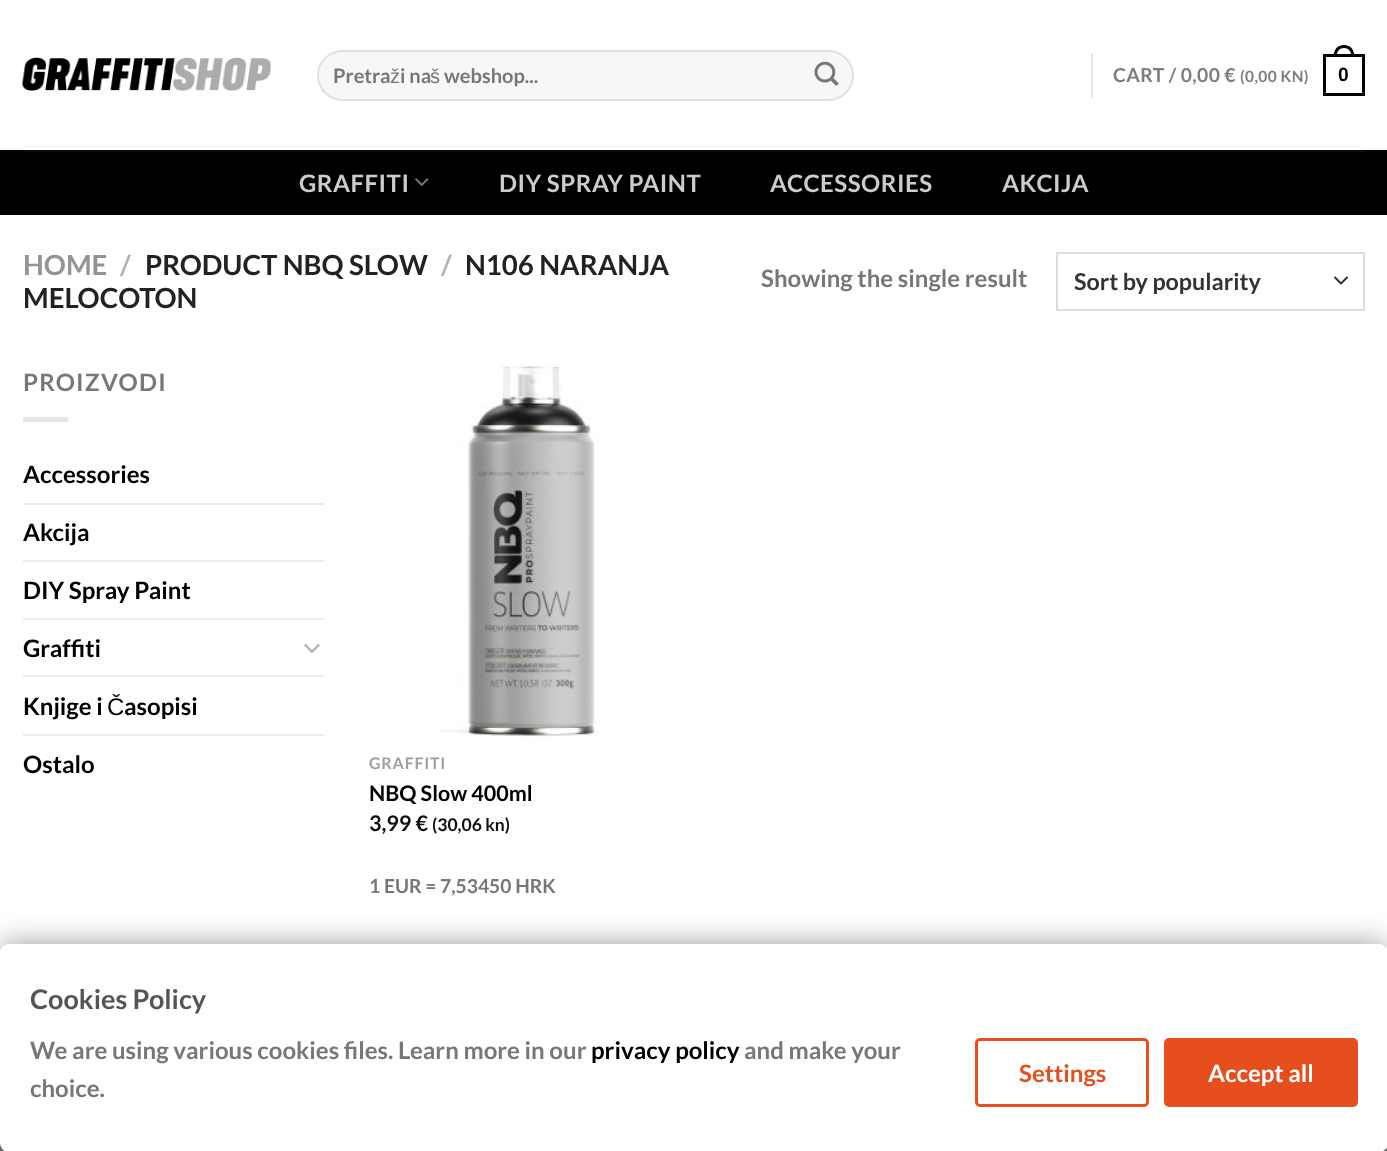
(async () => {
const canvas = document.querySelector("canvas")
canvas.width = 1387
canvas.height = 1151
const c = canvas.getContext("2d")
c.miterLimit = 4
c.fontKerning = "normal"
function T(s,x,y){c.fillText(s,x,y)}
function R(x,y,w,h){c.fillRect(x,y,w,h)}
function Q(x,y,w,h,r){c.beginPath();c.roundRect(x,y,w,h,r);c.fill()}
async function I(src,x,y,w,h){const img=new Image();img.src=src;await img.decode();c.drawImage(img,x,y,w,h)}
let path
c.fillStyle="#fff"
R(0,0,1387,1151)
await I("1.png",22,57,249,35)
c.fillStyle="#f7f7f7"
Q(317,50,537,51,25.5)
c.beginPath()
c.roundRect(318,51,535,49,24.5)
c.strokeStyle="#00000017"
c.lineWidth=2
c.stroke()
c.font="bold 20px Lato"
c.fillStyle="#777"
T("Pretra",333,83)
c.font="20px Liberation Sans"
T("ž",390,83)
c.font="bold 20px Lato"
T("i na",400,83)
c.font="20px Liberation Sans"
T("š",430,83)
c.font="bold 20px Lato"
T("webshop...",444,83)
await I("2.png",814,61,25,25)
c.fillStyle="#e6e6e6"
R(1091,53,2,45)
c.letterSpacing="0.4px"
c.font="bold 19.25px Lato"
c.fillStyle="#7d7d7d"
T("CART / 0,00 €",1113,82)
c.font="bold 15.5px Lato"
T("(0,00 KN)",1240,82)
c.strokeStyle="#000"
c.lineWidth=3
c.strokeRect(1324.5,55.5,39,39)
c.fillStyle="#000"
path = new Path2D("M1344 45c7 0 10.5 5.5 10.5 12h-21c0-6.5 3.5-12 10.5-12zm0 3c5.5 0 7.5 4.5 7.5 9h-15c0-4.5 2-9 7.5-9z")
c.fill(path,"evenodd")
c.font="bold 19.25px Liberation Sans"
T("0",1338,81)
R(0,150,1387,65)
c.fillStyle="#0c0c0c"
R(23,150,1342,2)
c.letterSpacing="0.5px"
c.font="bold 24px Lato"
c.fillStyle="#ccc"
T("GRAFFITI",299,192)
await I("3.png",415,178,14,8)
T("DIY SPRAY PAINT",499,192)
T("ACCESSORIES",770,192)
T("AKCIJA",1002,192)
c.letterSpacing="0px"
c.font="bold 27.6px Lato"
c.fillStyle="#949494"
T("HOME",23,275)
c.fillStyle="#b2b2b2"
T("/",120,275)
c.fillStyle="#222"
T("PRODUCT NBQ SLOW",145,275)
c.fillStyle="#b2b2b2"
T("/",441,275)
c.fillStyle="#222"
T("N106 NARANJA",465,275)
T("MELOCOTON",23,308)
c.font="bold 24px Lato"
c.fillStyle="#777"
T("Showing the single result",761,287)
path = new Path2D("M1335 277.5l6 6l6-6")
c.strokeStyle="#333"
c.lineWidth=2
c.lineCap="round"
c.lineJoin="round"
c.stroke(path)
c.strokeStyle="#ddd"
c.lineJoin="miter"
c.strokeRect(1057,253,307,57)
c.font="bold 23.25px Lato"
c.fillStyle="#333"
T("Sort by popularity",1074,290)
c.letterSpacing="1.25px"
c.font="bold 24px Lato"
c.fillStyle="#777"
T("PROIZVODI",23,391)
c.fillStyle="#e6e6e6"
R(23,417,45,5)
c.letterSpacing="0px"
c.fillStyle="#000"
T("Accessories",23,483)
c.fillStyle="#ececec"
R(23,503,301,2)
c.fillStyle="#000"
T("Akcija",23,541)
c.fillStyle="#ececec"
R(23,560,301,2)
c.fillStyle="#000"
T("DIY Spray Paint",23,599)
c.fillStyle="#ececec"
R(23,618,301,2)
c.fillStyle="#000"
T("Graffiti",23,657)
await I("4.png",304,644,16,9)
c.fillStyle="#ececec"
R(23,675,301,2)
c.fillStyle="#000"
T("Knjige i",23,715)
c.font="24px Liberation Sans"
T("Č",107,715)
c.font="bold 24px Lato"
T("asopisi",124,715)
c.fillStyle="#ececec"
R(23,734,301,2)
c.fillStyle="#000"
T("Ostalo",23,773)
await I("5.png",440,364,158,374)
c.letterSpacing="0.75px"
c.font="bold 16px Lato"
c.fillStyle="#a0a0a0"
T("GRAFFITI",369,769)
c.letterSpacing="0px"
c.font="bold 21.5px Lato"
c.fillStyle="#000"
T("NBQ Slow 400ml",369,801)
c.fillStyle="#111"
T("3,99 €",369,831)
c.font="bold 17.5px Lato"
T("(30,06 kn)",432,831)
c.font="bold 19.25px Lato"
c.fillStyle="#777"
T("1 EUR = 7,53450 HRK",369,893)
R(0,1143,1387,8)
c.fillStyle="#00000066"
c.filter="blur(15px)"
c.beginPath()
c.roundRect(0,944,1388,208,9)
c.fill()
c.filter="none"
c.fillStyle="#fff"
Q(0,944,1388,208,9)
c.font="bold 27px Lato"
c.fillStyle="#555"
T("Cookies Policy",30,1009)
c.font="bold 24px Lato"
c.fillStyle="#777"
T("We are using various cookies files. Learn more in our",30,1059)
c.fillStyle="#000"
T("privacy policy",591,1059)
c.fillStyle="#777"
T("and make your",744,1059)
T("choice.",30,1097)
c.beginPath()
c.roundRect(976.5,1039.5,171,66,3.5)
c.strokeStyle="#e74e1e"
c.lineWidth=3
c.stroke()
c.fillStyle="#e74e1e"
T("Settings",1019,1082)
c.beginPath()
c.roundRect(1165.5,1039.5,191,66,3.5)
c.fill()
c.stroke()
c.fillStyle="#fff"
T("Accept all",1208,1082)
})()
